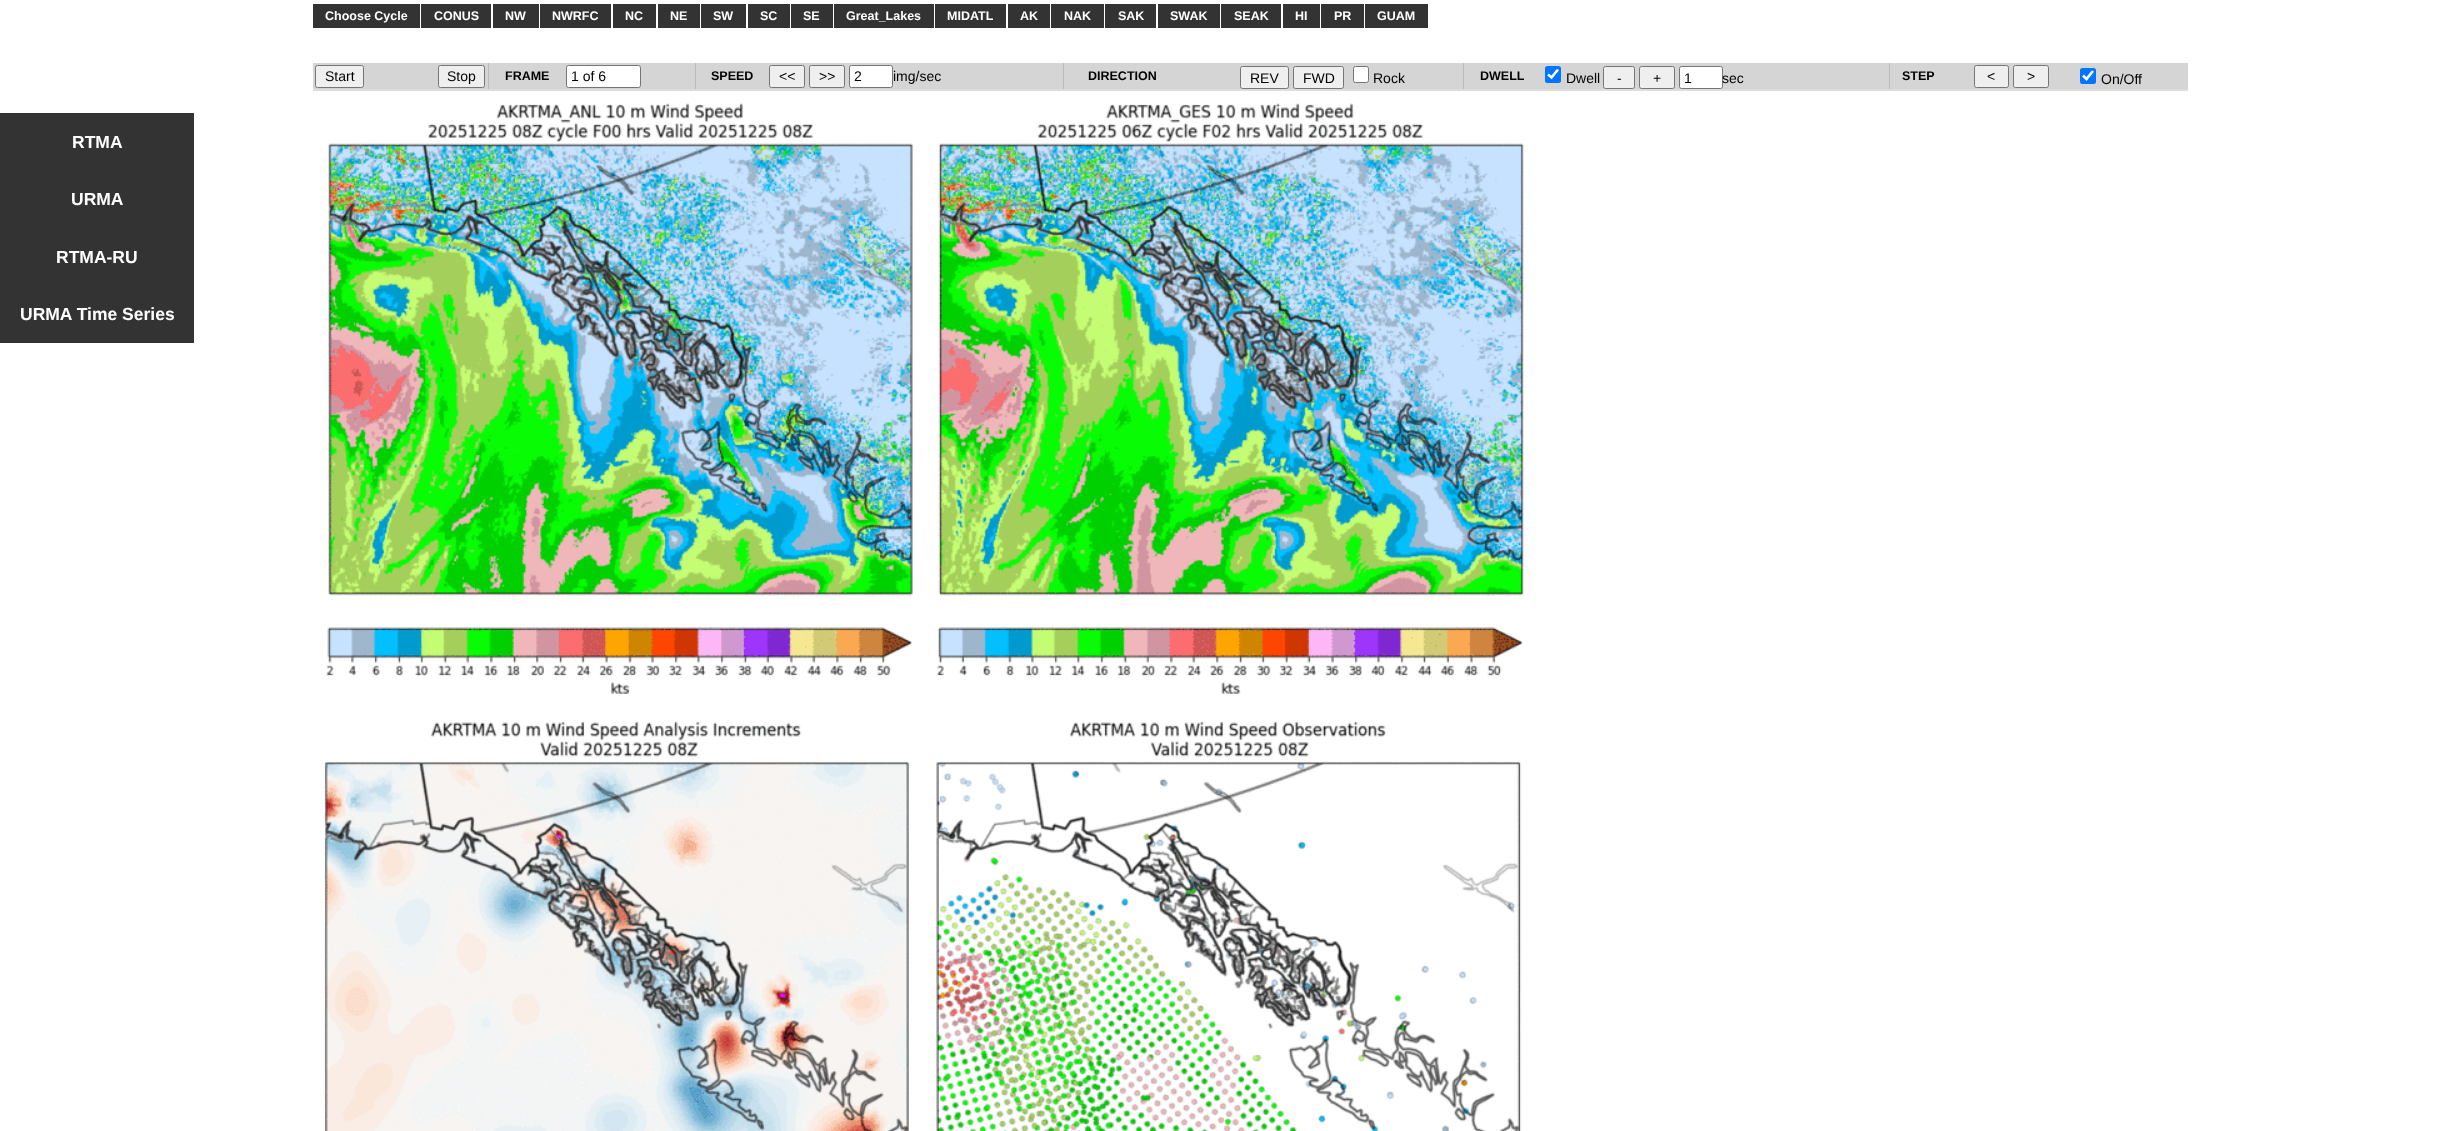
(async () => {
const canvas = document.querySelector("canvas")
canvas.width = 2444
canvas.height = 1131
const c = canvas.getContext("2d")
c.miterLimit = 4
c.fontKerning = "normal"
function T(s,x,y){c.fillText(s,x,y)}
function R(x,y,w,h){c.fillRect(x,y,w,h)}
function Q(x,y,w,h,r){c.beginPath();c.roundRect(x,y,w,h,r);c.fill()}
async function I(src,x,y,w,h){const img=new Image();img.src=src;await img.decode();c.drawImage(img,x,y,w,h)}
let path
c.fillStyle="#fff"
R(0,0,2444,1131)
c.fillStyle="#333"
R(313,4,107,24)
c.font="bold 12.5px Liberation Sans"
c.fillStyle="#fff"
T("Choose Cycle",325,20)
c.fillStyle="#333"
R(421,4,70,24)
c.fillStyle="#fff"
T("CONUS",434,20)
c.fillStyle="#333"
R(493,4,46,24)
c.fillStyle="#fff"
T("NW",505,20)
c.fillStyle="#333"
R(540,4,71,24)
c.fillStyle="#fff"
T("NWRFC",552,20)
c.fillStyle="#333"
R(613,4,43,24)
c.fillStyle="#fff"
T("NC",625,20)
c.fillStyle="#333"
R(658,4,42,24)
c.fillStyle="#fff"
T("NE",670,20)
c.fillStyle="#333"
R(701,4,45,24)
c.fillStyle="#fff"
T("SW",713,20)
c.fillStyle="#333"
R(748,4,42,24)
c.fillStyle="#fff"
T("SC",760,20)
c.fillStyle="#333"
R(791,4,42,24)
c.fillStyle="#fff"
T("SE",803,20)
c.fillStyle="#333"
R(834,4,100,24)
c.fillStyle="#fff"
T("Great_Lakes",846,20)
c.fillStyle="#333"
R(935,4,71,24)
c.fillStyle="#fff"
T("MIDATL",947,20)
c.fillStyle="#333"
R(1008,4,42,24)
c.fillStyle="#fff"
T("AK",1020,20)
c.fillStyle="#333"
R(1051,4,53,24)
c.fillStyle="#fff"
T("NAK",1064,20)
c.fillStyle="#333"
R(1105,4,51,24)
c.fillStyle="#fff"
T("SAK",1118,20)
c.fillStyle="#333"
R(1158,4,62,24)
c.fillStyle="#fff"
T("SWAK",1170,20)
c.fillStyle="#333"
R(1221,4,60,24)
c.fillStyle="#fff"
T("SEAK",1234,20)
c.fillStyle="#333"
R(1283,4,37,24)
c.fillStyle="#fff"
T("HI",1295,20)
c.fillStyle="#333"
R(1321,4,43,24)
c.fillStyle="#fff"
T("PR",1334,20)
c.fillStyle="#333"
R(1365,4,63,24)
c.fillStyle="#fff"
T("GUAM",1377,20)
c.fillStyle="#d5d5d5"
R(313,63,1875,26)
c.fillStyle="#ddd"
R(313,89,1875,2)
c.fillStyle="#efefef"
c.beginPath()
c.roundRect(315.5,65.5,48,22,2)
c.fill()
c.strokeStyle="#767676"
c.stroke()
c.font="14px Liberation Sans"
c.fillStyle="#000"
T("Start",325,81)
c.fillStyle="#efefef"
c.beginPath()
c.roundRect(438.5,65.5,46,22,2)
c.fill()
c.stroke()
c.fillStyle="#000"
T("Stop",447,81)
c.fillStyle="#bbb"
R(488,63,1,26)
c.font="bold 12.5px Liberation Sans"
c.fillStyle="#000"
T("FRAME",505,80)
c.fillStyle="#fff"
c.beginPath()
c.roundRect(566.5,65.5,74,22,2)
c.fill()
c.stroke()
c.font="14px Liberation Sans"
c.fillStyle="#000"
T("1 of 6",571,81)
c.fillStyle="#bbb"
R(695,63,1,26)
c.font="bold 12.5px Liberation Sans"
c.fillStyle="#000"
T("SPEED",711,80)
c.fillStyle="#efefef"
c.beginPath()
c.roundRect(769.5,65.5,35,22,2)
c.fill()
c.stroke()
c.font="14px Liberation Sans"
c.fillStyle="#000"
T("<<",779,81)
c.fillStyle="#efefef"
c.beginPath()
c.roundRect(809.5,65.5,35,22,2)
c.fill()
c.stroke()
c.fillStyle="#000"
T(">>",819,81)
c.fillStyle="#fff"
c.beginPath()
c.roundRect(849.5,65.5,43,22,2)
c.fill()
c.stroke()
c.fillStyle="#000"
T("2",854,81)
T("img/sec",893,81)
c.fillStyle="#bbb"
R(1063,63,1,26)
c.font="bold 12.5px Liberation Sans"
c.fillStyle="#000"
T("DIRECTION",1088,80)
c.fillStyle="#efefef"
c.beginPath()
c.roundRect(1240.5,66.5,48,22,2)
c.fill()
c.stroke()
c.font="14px Liberation Sans"
c.fillStyle="#000"
T("REV",1250,83)
c.fillStyle="#efefef"
c.beginPath()
c.roundRect(1293.5,66.5,50,22,2)
c.fill()
c.stroke()
c.fillStyle="#000"
T("FWD",1303,83)
c.fillStyle="#fff"
c.beginPath()
c.roundRect(1353.5,66.5,15,16,2)
c.fill()
c.stroke()
c.fillStyle="#000"
T("Rock",1373,83)
c.fillStyle="#bbb"
R(1463,63,1,26)
c.font="bold 12.5px Liberation Sans"
c.fillStyle="#000"
T("DWELL",1480,80)
c.fillStyle="#0075ff"
Q(1545,66,16,17,2.5)
path = new Path2D("M1548 74.5l3.5 3l6.5-8")
c.strokeStyle="#fff"
c.lineWidth=2.6
c.stroke(path)
c.font="14px Liberation Sans"
c.fillStyle="#000"
T("Dwell",1566,83)
c.fillStyle="#efefef"
c.beginPath()
c.roundRect(1603.5,66.5,31,22,2)
c.fill()
c.strokeStyle="#767676"
c.lineWidth=1
c.stroke()
c.fillStyle="#000"
T("-",1617,83)
c.fillStyle="#efefef"
c.beginPath()
c.roundRect(1639.5,66.5,35,22,2)
c.fill()
c.stroke()
c.fillStyle="#000"
T("+",1653,83)
c.fillStyle="#fff"
c.beginPath()
c.roundRect(1679.5,66.5,43,22,2)
c.fill()
c.stroke()
c.fillStyle="#000"
T("1",1684,83)
T("sec",1722,83)
c.fillStyle="#bbb"
R(1889,63,1,26)
c.font="bold 12.5px Liberation Sans"
c.fillStyle="#000"
T("STEP",1902,80)
c.fillStyle="#efefef"
c.beginPath()
c.roundRect(1974.5,65.5,34,22,2)
c.fill()
c.stroke()
c.font="14px Liberation Sans"
c.fillStyle="#000"
T("<",1987,81)
c.fillStyle="#efefef"
c.beginPath()
c.roundRect(2013.5,65.5,35,22,2)
c.fill()
c.stroke()
c.fillStyle="#000"
T(">",2027,81)
c.fillStyle="#0075ff"
Q(2080,68,16,16,2.5)
path = new Path2D("M2083 75.5l3.5 3.5l6.5-8")
c.strokeStyle="#fff"
c.lineWidth=2.6
c.stroke(path)
c.fillStyle="#000"
T("On/Off",2101,84)
await I("1.png",323,103,1202,1028)
c.fillStyle="#333"
R(0,113,194,230)
c.font="bold 17.5px Liberation Sans"
c.fillStyle="#fff"
T("RTMA",72,148)
T("URMA",71,205)
T("RTMA-RU",56,263)
T("URMA Time Series",20,320)
})()
